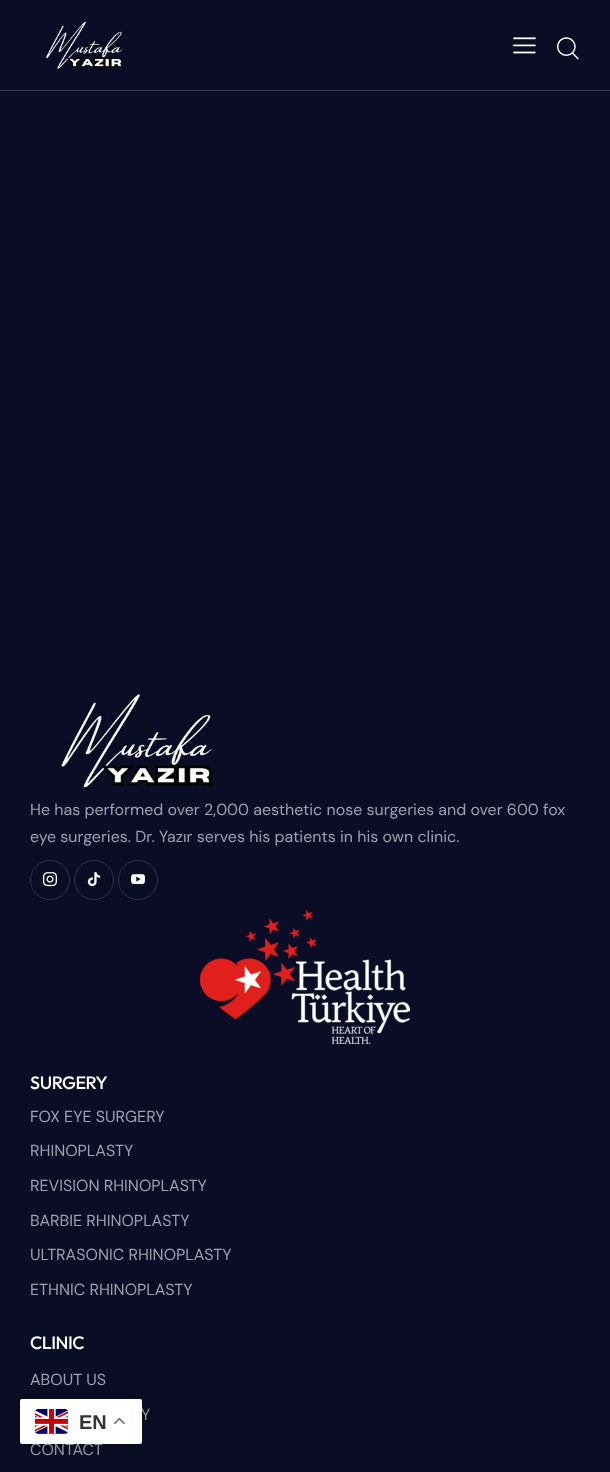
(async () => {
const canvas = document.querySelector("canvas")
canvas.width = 610
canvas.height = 1472
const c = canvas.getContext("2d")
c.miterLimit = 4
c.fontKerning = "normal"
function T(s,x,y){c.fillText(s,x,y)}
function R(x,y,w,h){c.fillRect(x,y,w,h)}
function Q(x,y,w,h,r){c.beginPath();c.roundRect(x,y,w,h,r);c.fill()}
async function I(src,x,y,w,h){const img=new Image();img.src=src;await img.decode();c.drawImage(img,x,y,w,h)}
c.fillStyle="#0b0d26"
R(0,0,610,1472)
c.fillStyle="#35394b"
R(0,90,610,1)
await I("1.png",46,21,77,48)
await I("2.png",513,37,23,17)
await I("3.png",557,37,22,23)
await I("4.png",60,694,153,94)
c.font="16px DM Sans"
c.fillStyle="#9ba2ad"
T("He has performed over 2,000 aesthetic nose surgeries and over 600 fox",30,815)
T("eye surgeries. Dr. Yazır serves his patients in his own clinic.",30,842)
c.beginPath()
c.arc(50,880,19.5,0,7)
c.strokeStyle="#2f3146"
c.stroke()
await I("5.png",43,872,14,15)
c.beginPath()
c.arc(94,880,19.5,0,7)
c.stroke()
await I("6.png",87,872,14,15)
c.beginPath()
c.arc(138,880,19.5,0,7)
c.stroke()
await I("7.png",131,874,14,11)
await I("8.png",200,910,210,134)
c.letterSpacing="-0.5px"
c.font="500 18px Outfit"
c.fillStyle="#fcfcfc"
T("SURGERY",30,1089)
c.letterSpacing="0px"
c.font="16px DM Sans"
c.fillStyle="#9ba2ad"
T("FOX EYE SURGERY",30,1122)
T("RHINOPLASTY",30,1156)
T("REVISION RHINOPLASTY",30,1191)
T("BARBIE RHINOPLASTY",30,1226)
T("ULTRASONIC RHINOPLASTY",30,1260)
T("ETHNIC RHINOPLASTY",30,1295)
c.letterSpacing="-0.5px"
c.font="500 18px Outfit"
c.fillStyle="#fcfcfc"
T("CLINIC",30,1349)
c.letterSpacing="0px"
c.font="16px DM Sans"
c.fillStyle="#9ba2ad"
T("ABOUT US",30,1385)
T("Y",141,1420)
T("CONTACT",30,1455)
c.fillStyle="#00000026"
c.filter="blur(7.5px)"
c.beginPath()
c.roundRect(20,1404,122,45,2)
c.fill()
c.filter="none"
c.fillStyle="#fff"
Q(20,1399,122,45,2)
await I("9.png",35,1409,33,25)
c.font="bold 20px Liberation Sans"
c.fillStyle="#333"
T("EN",79,1429)
await I("10.png",114,1417,11,8)
})()
